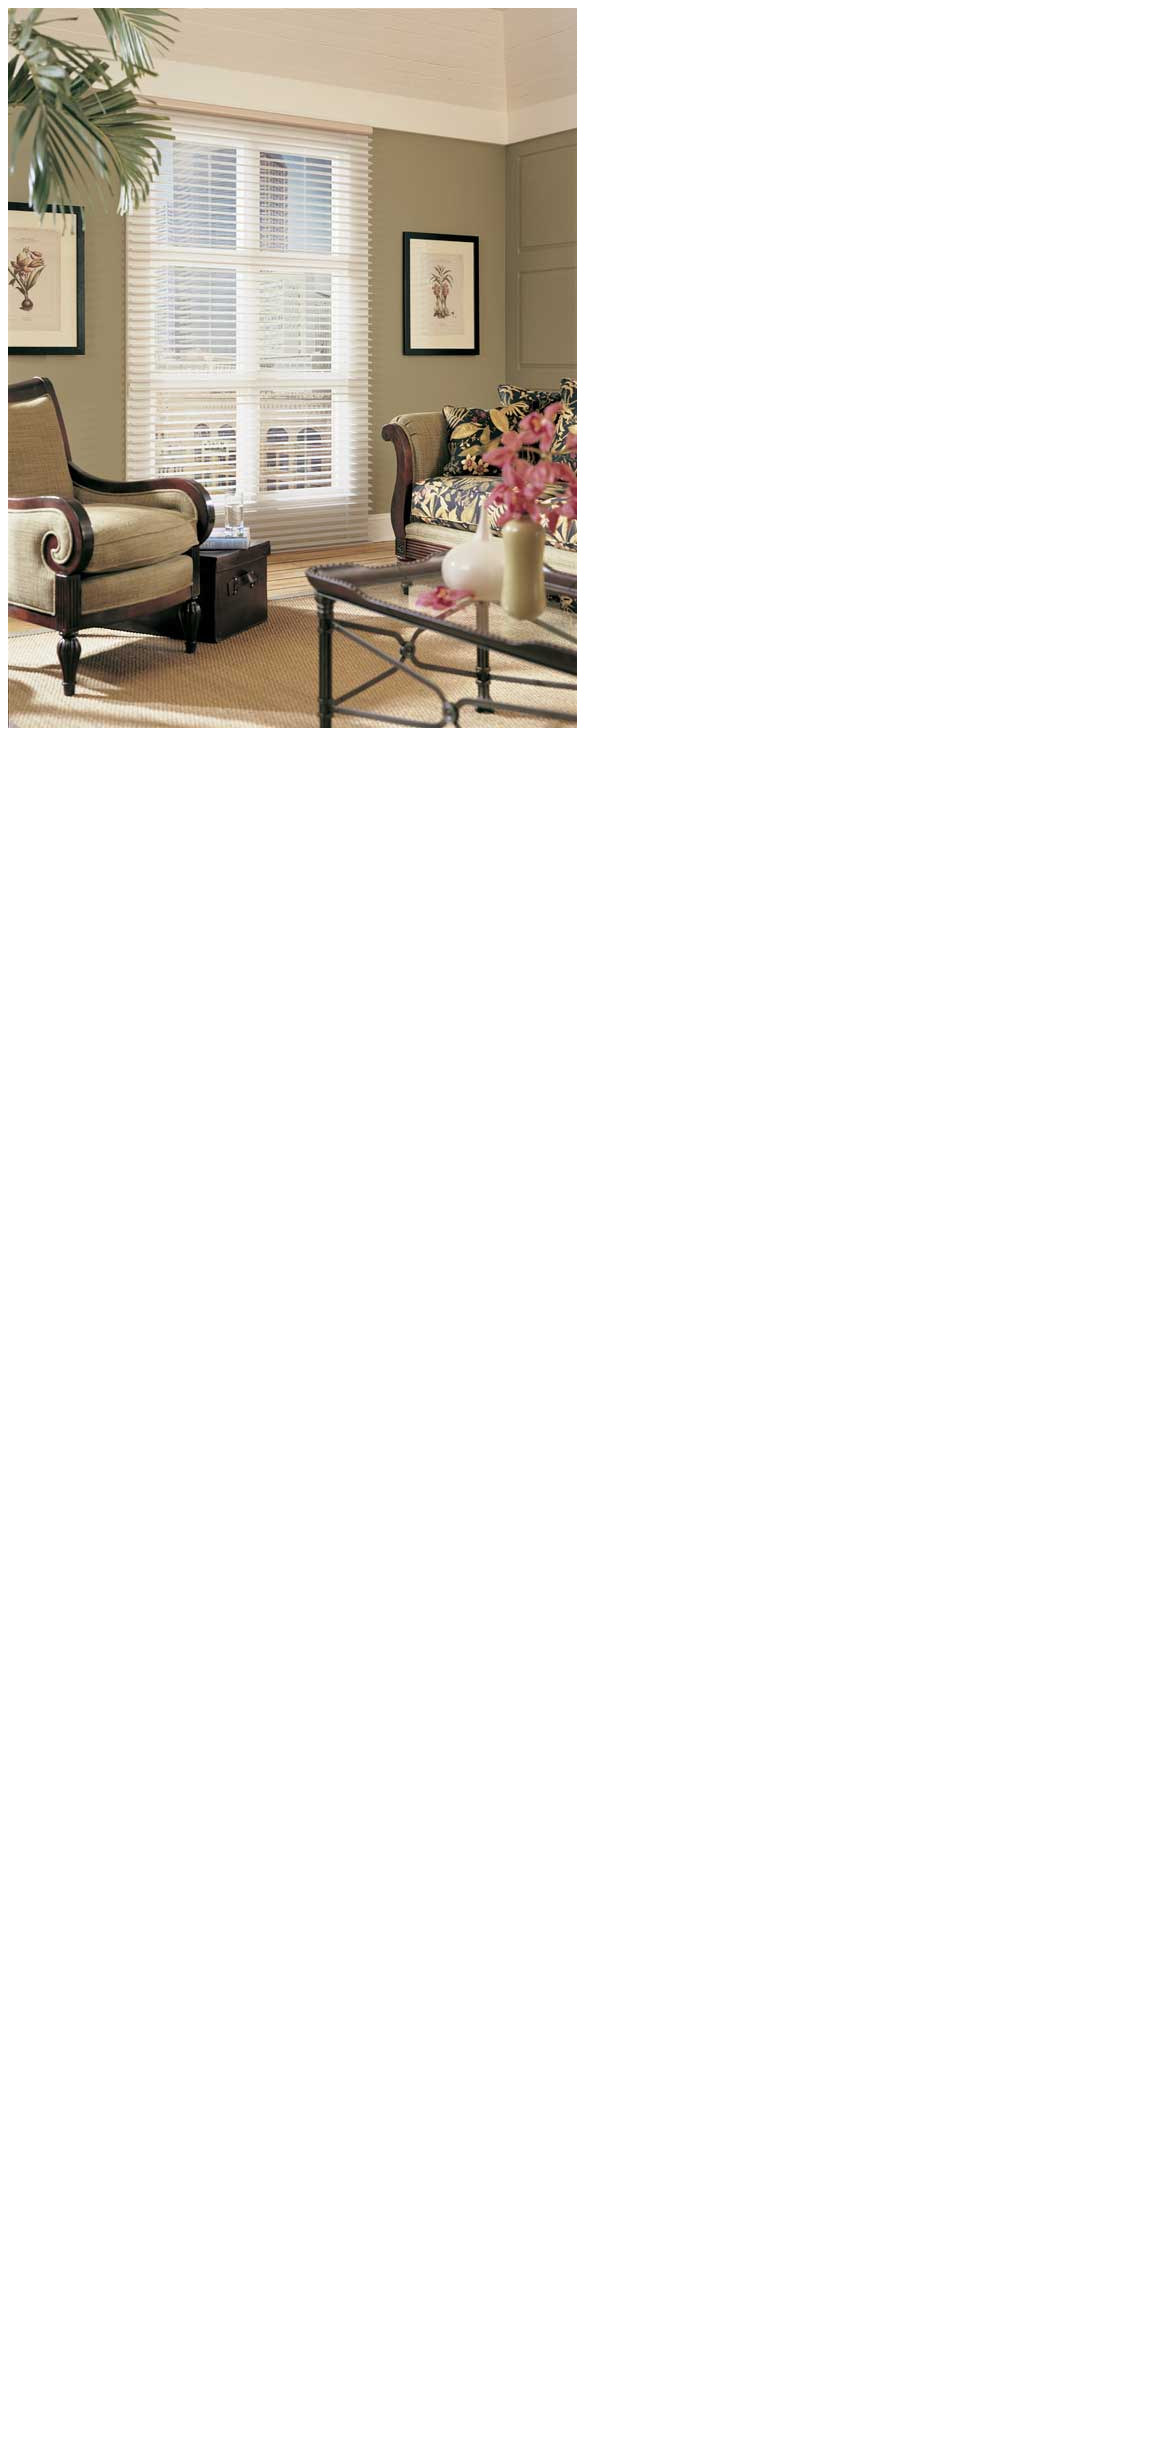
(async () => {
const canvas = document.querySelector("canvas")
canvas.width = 1154
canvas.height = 2452
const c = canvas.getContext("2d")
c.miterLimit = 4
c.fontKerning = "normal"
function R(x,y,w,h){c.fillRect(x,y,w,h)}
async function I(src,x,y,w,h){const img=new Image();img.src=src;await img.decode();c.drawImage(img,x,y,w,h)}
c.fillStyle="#fff"
R(0,0,1154,2452)
await I("1.png",8,8,569,720)
})()
